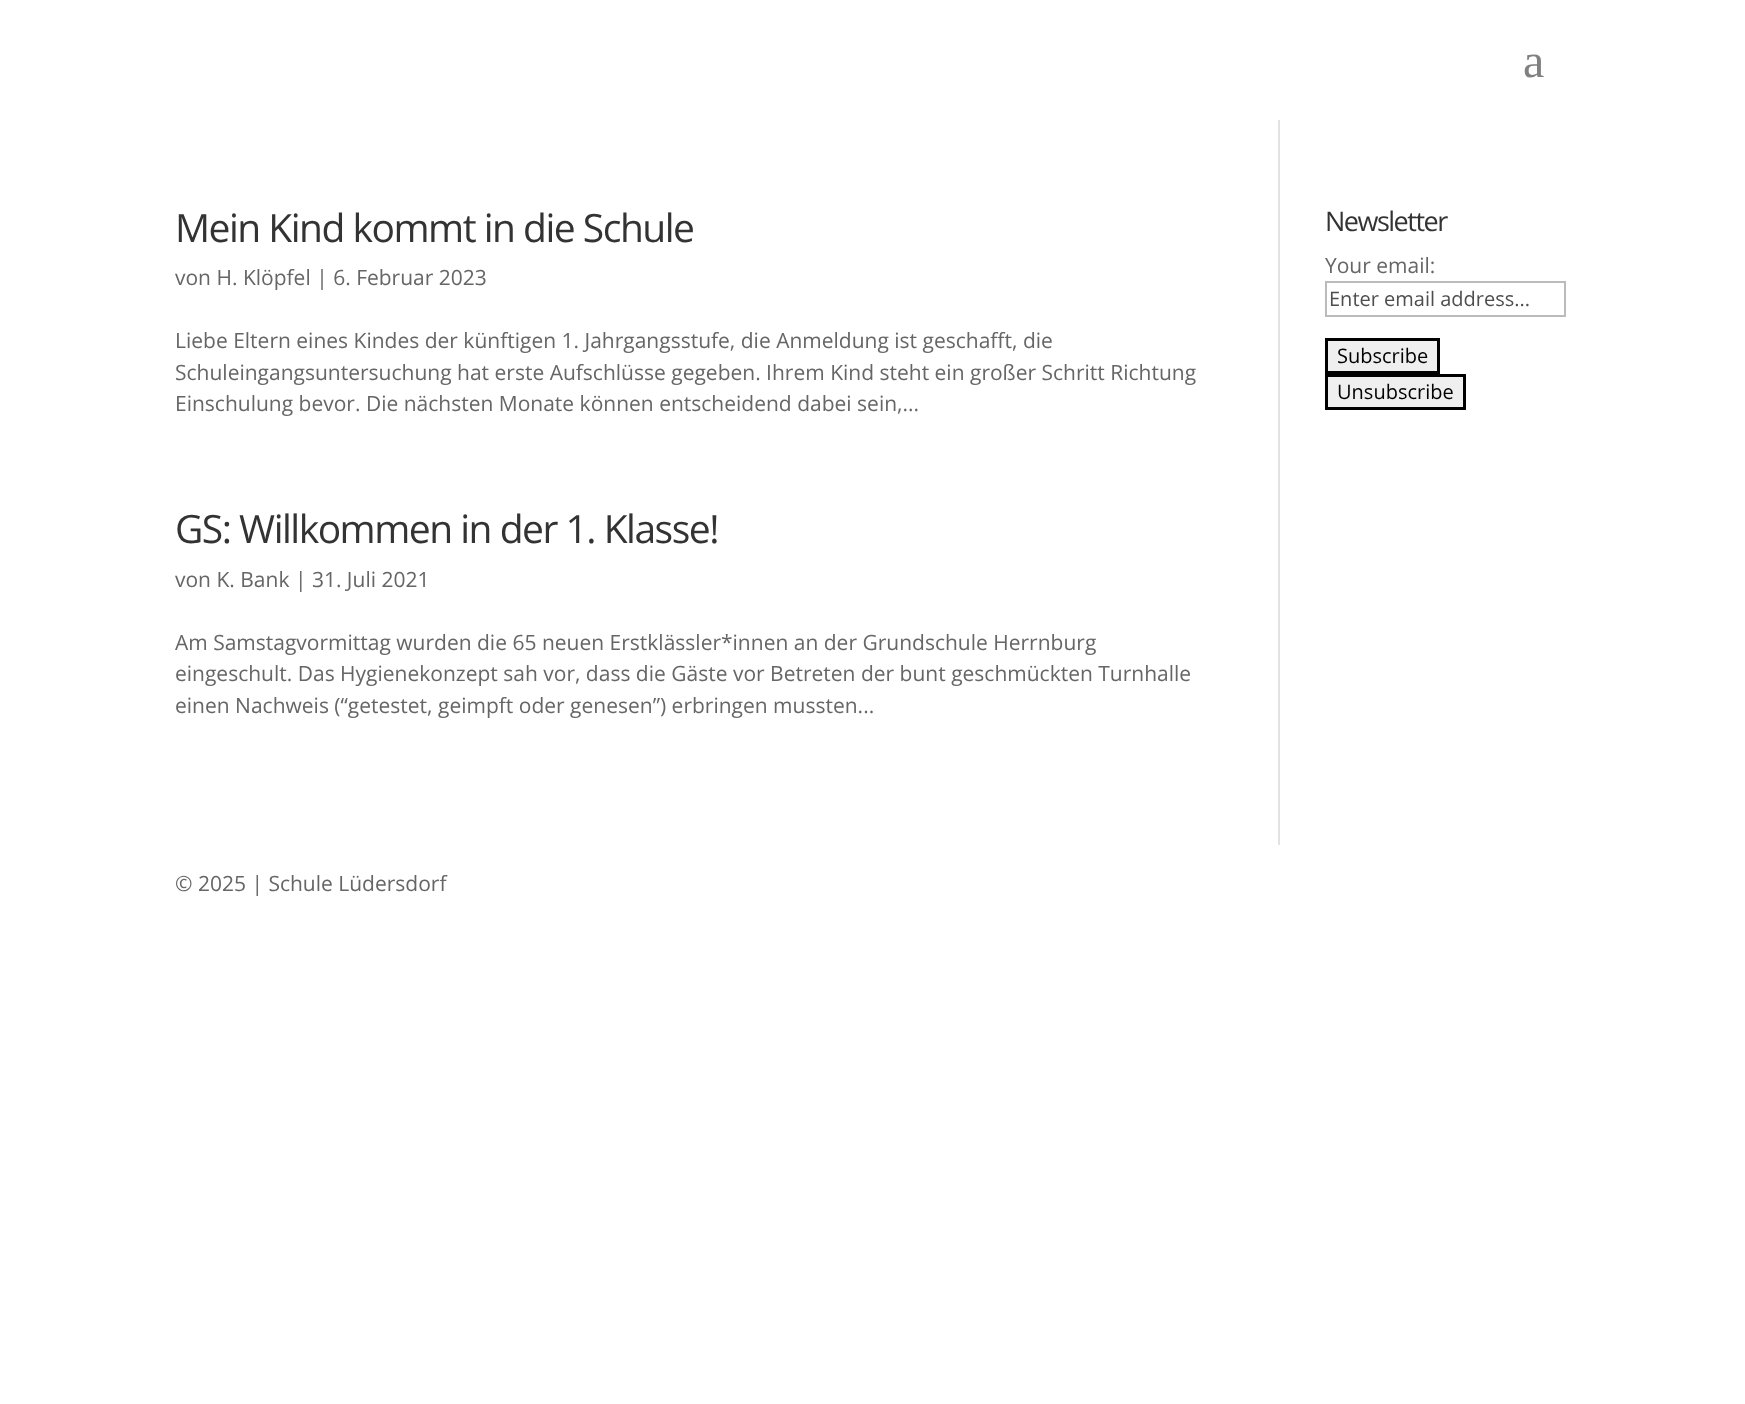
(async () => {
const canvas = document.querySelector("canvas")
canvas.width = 1745
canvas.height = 1404
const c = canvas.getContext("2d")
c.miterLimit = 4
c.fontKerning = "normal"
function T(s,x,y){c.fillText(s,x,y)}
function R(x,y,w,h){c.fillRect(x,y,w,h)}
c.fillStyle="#fff"
R(0,0,1745,1404)
c.font="48px Liberation Serif"
c.fillStyle="#808080"
T("a",1523,77)
c.fillStyle="#e2e2e2"
R(1278,120,2,725)
c.letterSpacing="-1.5px"
c.font="39px Open Sans"
c.fillStyle="#333"
T("Mein Kind kommt in die Schule",175,242)
c.letterSpacing="0px"
c.font="21px Open Sans"
c.fillStyle="#666"
T("von H. Klöpfel | 6. Februar 2023",175,285)
T("Liebe Eltern eines Kindes der künftigen 1. Jahrgangsstufe, die Anmeldung ist geschafft, die",175,348)
T("Schuleingangsuntersuchung hat erste Aufschlüsse gegeben. Ihrem Kind steht ein großer Schritt Richtung",175,380)
T("Einschulung bevor. Die nächsten Monate können entscheidend dabei sein,...",175,411)
c.letterSpacing="-1.5px"
c.font="39px Open Sans"
c.fillStyle="#333"
T("GS: Willkommen in der 1. Klasse!",175,543)
c.letterSpacing="0px"
c.font="21px Open Sans"
c.fillStyle="#666"
T("von K. Bank | 31. Juli 2021",175,587)
T("Am Samstagvormittag wurden die 65 neuen Erstklässler*innen an der Grundschule Herrnburg",175,650)
T("eingeschult. Das Hygienekonzept sah vor, dass die Gäste vor Betreten der bunt geschmückten Turnhalle",175,681)
T("einen Nachweis (“getestet, geimpft oder genesen”) erbringen mussten...",175,713)
c.letterSpacing="-1.5px"
c.font="27px Open Sans"
c.fillStyle="#333"
T("Newsletter",1325,231)
c.letterSpacing="0px"
c.font="21px Open Sans"
c.fillStyle="#666"
T("Your email:",1325,273)
c.strokeStyle="#bbb"
c.lineWidth=2
c.strokeRect(1326,282,239,34)
c.font="20px Open Sans"
c.fillStyle="#4e4e4e"
T("Enter email address...",1329,306)
c.fillStyle="#efefef"
c.beginPath()
c.rect(1326.5,339.5,112,33)
c.fill()
c.strokeStyle="#000"
c.lineWidth=3
c.stroke()
c.fillStyle="#000"
T("Subscribe",1337,363)
c.fillStyle="#efefef"
c.beginPath()
c.rect(1326.5,375.5,138,33)
c.fill()
c.stroke()
c.fillStyle="#000"
T("Unsubscribe",1337,399)
c.font="21px Open Sans"
c.fillStyle="#666"
T("© 2025 | Schule Lüdersdorf",175,891)
})()
